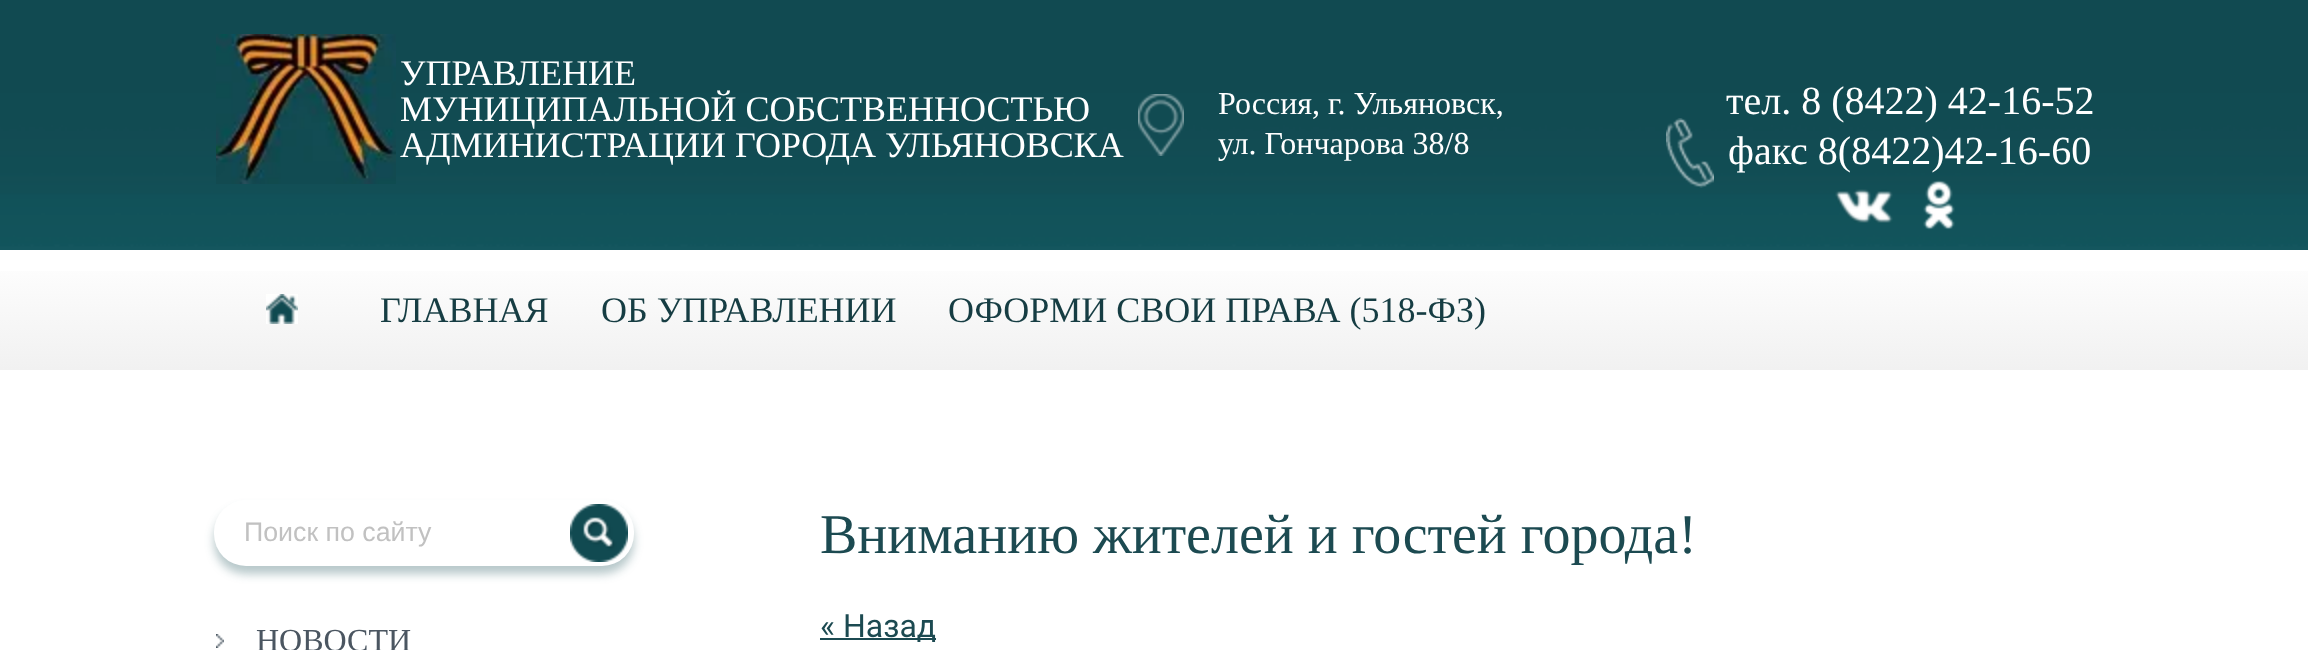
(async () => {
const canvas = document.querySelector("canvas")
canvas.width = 2308
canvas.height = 650
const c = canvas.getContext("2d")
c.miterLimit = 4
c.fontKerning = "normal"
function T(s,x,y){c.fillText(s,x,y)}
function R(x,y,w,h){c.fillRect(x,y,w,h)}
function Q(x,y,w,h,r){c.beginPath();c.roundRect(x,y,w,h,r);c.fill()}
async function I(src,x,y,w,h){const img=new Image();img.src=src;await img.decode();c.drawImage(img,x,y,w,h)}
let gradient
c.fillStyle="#fff"
R(0,0,2308,650)
await I("1.png",0,0,2308,250)
await I("2.png",216,34,180,150)
c.font="36px Liberation Serif"
T("УПРАВЛЕНИЕ",400,85)
T("МУНИЦИПАЛЬНОЙ СОБСТВЕННОСТЬЮ",400,121)
T("АДМИНИСТРАЦИИ ГОРОДА УЛЬЯНОВСКА",400,157)
await I("3.png",1138,94,46,62)
c.font="32px Liberation Serif"
T("Россия, г. Ульяновск,",1218,114)
T("ул. Гончарова 38/8",1218,154)
await I("4.png",1666,118,48,70)
c.font="40px Liberation Serif"
T("тел. 8 (8422) 42-16-52",1726,114)
T("факс 8(8422)42-16-60",1728,164)
await I("5.png",1835,189,58,34)
await I("6.png",1923,180,32,50)
gradient = c.createLinearGradient(1154,250,1154,370)
gradient.addColorStop(0,"#fff")
gradient.addColorStop(1,"#f1f1f1")
c.fillStyle = gradient
R(0,271,2308,99)
await I("7.png",266,294,32,30)
c.font="36px Liberation Serif"
c.fillStyle="#163d43"
T("ГЛАВНАЯ",380,322)
T("ОБ УПРАВЛЕНИИ",601,322)
T("ОФОРМИ СВОИ ПРАВА (518-ФЗ)",948,322)
c.fillStyle="#114a514d"
c.filter="blur(5px)"
c.beginPath()
c.roundRect(214,508,420,66,32)
c.fill()
c.filter="none"
c.fillStyle="#fff"
Q(214,500,420,66,32)
c.font="26.75px Liberation Sans"
c.fillStyle="#c1c1c1"
T("Поиск по сайту",244,541)
await I("8.png",570,504,58,58)
await I("9.png",216,634,8,14)
c.font="32px Liberation Serif"
c.fillStyle="#4b5661"
T("НОВОСТИ",256,651)
c.font="56px Liberation Serif"
c.fillStyle="#1c4a51"
T("Вниманию жителей и гостей города!",820,553)
R(820,638,116,2)
c.font="32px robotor"
T("« Назад",820,637)
})()
